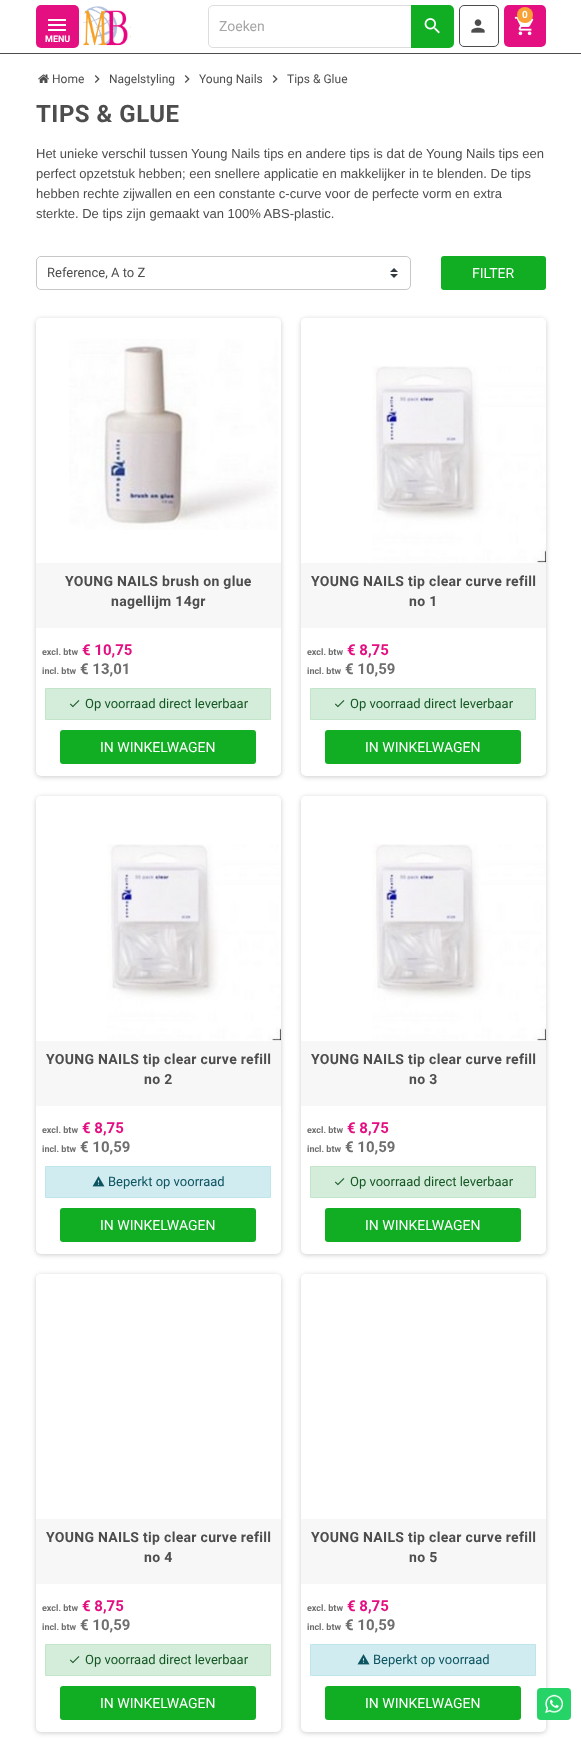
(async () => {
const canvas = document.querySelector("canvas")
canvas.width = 581
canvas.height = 1740
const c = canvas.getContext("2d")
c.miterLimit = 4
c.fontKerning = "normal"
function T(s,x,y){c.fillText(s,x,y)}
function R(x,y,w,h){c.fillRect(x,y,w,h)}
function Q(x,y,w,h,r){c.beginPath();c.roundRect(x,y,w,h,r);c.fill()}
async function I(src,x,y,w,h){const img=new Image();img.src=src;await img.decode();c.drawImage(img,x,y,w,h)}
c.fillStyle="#fff"
R(0,0,581,1740)
c.fillStyle="#4d4d4d"
R(0,53,581,1)
await I("1.png",83,6,48,40)
c.beginPath()
c.roundRect(459.5,5.5,39,41,4.5)
c.strokeStyle="#4d4d4d"
c.stroke()
await I("2.png",471,19,14,14)
c.fillStyle="#e41082"
Q(504,5,42,42,5)
await I("3.png",514,16,20,20)
c.fillStyle="#f9a135"
c.beginPath()
c.arc(525,15,8,0,7)
c.fill()
c.font="bold 10px 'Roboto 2'"
c.fillStyle="#fff"
T("0",522,18)
c.beginPath()
c.roundRect(208.5,5.5,244,42,4.5)
c.strokeStyle="#ddd"
c.stroke()
c.font="14px Roboto"
c.fillStyle="#a6a6a6"
T("Zoeken",219,31)
c.fillStyle="#11ae23"
c.beginPath()
c.roundRect(411,5,43,43,[0,5,5,0])
c.fill()
await I("4.png",424,18,16,16)
c.fillStyle="#e41082"
Q(36,5,43,43,5)
c.fillStyle="#fff"
R(48,19,18,2)
R(48,24,18,2)
R(48,29,18,2)
c.font="bold 9px 'Roboto 2'"
T("MENU",45,42)
await I("5.png",38,74,11,9)
c.font="12px Roboto"
c.fillStyle="#4d4d4d"
T("Home",52,83)
await I("6.png",94,75,6,8)
T("Nagelstyling",109,83)
await I("6.png",184,75,6,8)
T("Young Nails",199,83)
await I("6.png",272,75,6,8)
T("Tips & Glue",287,83)
c.letterSpacing="0.5px"
c.font="bold 24px Roboto"
T("TIPS & GLUE",36,122)
c.letterSpacing="0px"
c.font="13px Liberation Sans"
T("Het unieke verschil tussen Young Nails tips en andere tips is dat de Young Nails tips een",36,158)
T("perfect opzetstuk hebben; een snellere applicatie en makkelijker in te blenden. De tips",36,178)
T("hebben rechte zijwallen en een constante c-curve voor de perfecte vorm en extra",36,198)
T("sterkte. De tips zijn gemaakt van 100% ABS-plastic.",36,218)
await I("7.png",390,268,8,10)
c.beginPath()
c.roundRect(36.5,256.5,374,33,4.5)
c.strokeStyle="#c7c7c7"
c.stroke()
c.font="13px Roboto"
T("Reference, A to Z",47,277)
c.fillStyle="#11ae23"
Q(441,256,105,34,3)
c.font="14px Roboto"
c.fillStyle="#fff"
T("FILTER",472,278)
c.fillStyle="#00000033"
c.filter="blur(2.5px)"
c.beginPath()
c.roundRect(36,319,245,458,5)
c.fill()
c.filter="none"
c.fillStyle="#fff"
Q(36,318,245,458,5)
c.beginPath()
c.roundRect(36,318,245,245,[5,5,0,0])
c.fill()
await I("8.png",69,339,209,191)
c.fillStyle="#f7f7f7"
R(36,563,245,65)
c.letterSpacing="0.3px"
c.font="bold 14px 'Roboto 2'"
c.fillStyle="#4d4d4d"
T("YOUNG NAILS brush on glue",65,586)
T("nagellijm 14gr",111,606)
c.letterSpacing="0px"
c.font="bold 9px 'Roboto 2'"
c.fillStyle="#6f6f6f"
T("excl. btw",42,655)
c.font="bold 15px 'Roboto 2'"
c.fillStyle="#e41082"
T("€ 10,75",82,655)
c.font="bold 9px 'Roboto 2'"
c.fillStyle="#6f6f6f"
T("incl. btw",42,674)
c.font="bold 15px 'Roboto 2'"
T("€ 13,01",80,674)
c.fillStyle="#d4edda"
c.beginPath()
c.rect(45.5,688.5,225,31)
c.fill()
c.strokeStyle="#c3e6cb"
c.stroke()
await I("9.png",69,700,11,8)
c.font="13px Roboto"
c.fillStyle="#155724"
T("Op voorraad direct leverbaar",85,708)
c.fillStyle="#11ae23"
Q(60,730,196,34,3)
c.font="14px Roboto"
c.fillStyle="#fff"
T("IN WINKELWAGEN",100,752)
c.fillStyle="#00000033"
c.filter="blur(2.5px)"
c.beginPath()
c.roundRect(301,319,245,458,5)
c.fill()
c.filter="none"
c.fillStyle="#fff"
Q(301,318,245,458,5)
c.beginPath()
c.roundRect(301,318,245,245,[5,5,0,0])
c.fill()
await I("10.png",372,366,174,197)
c.fillStyle="#f7f7f7"
R(301,563,245,65)
c.letterSpacing="0.3px"
c.font="bold 14px 'Roboto 2'"
c.fillStyle="#4d4d4d"
T("YOUNG NAILS tip clear curve refill",311,586)
T("no 1",409,606)
c.letterSpacing="0px"
c.font="bold 9px 'Roboto 2'"
c.fillStyle="#6f6f6f"
T("excl. btw",307,655)
c.font="bold 15px 'Roboto 2'"
c.fillStyle="#e41082"
T("€ 8,75",347,655)
c.font="bold 9px 'Roboto 2'"
c.fillStyle="#6f6f6f"
T("incl. btw",307,674)
c.font="bold 15px 'Roboto 2'"
T("€ 10,59",345,674)
c.fillStyle="#d4edda"
c.beginPath()
c.rect(310.5,688.5,225,31)
c.fill()
c.stroke()
await I("9.png",334,700,11,8)
c.font="13px Roboto"
c.fillStyle="#155724"
T("Op voorraad direct leverbaar",350,708)
c.fillStyle="#11ae23"
Q(325,730,196,34,3)
c.font="14px Roboto"
c.fillStyle="#fff"
T("IN WINKELWAGEN",365,752)
c.fillStyle="#00000033"
c.filter="blur(2.5px)"
c.beginPath()
c.roundRect(36,797,245,458,5)
c.fill()
c.filter="none"
c.fillStyle="#fff"
Q(36,796,245,458,5)
c.beginPath()
c.roundRect(36,796,245,245,[5,5,0,0])
c.fill()
await I("10.png",107,844,174,197)
c.fillStyle="#f7f7f7"
R(36,1041,245,65)
c.letterSpacing="0.3px"
c.font="bold 14px 'Roboto 2'"
c.fillStyle="#4d4d4d"
T("YOUNG NAILS tip clear curve refill",46,1064)
T("no 2",144,1084)
c.letterSpacing="0px"
c.font="bold 9px 'Roboto 2'"
c.fillStyle="#6f6f6f"
T("excl. btw",42,1133)
c.font="bold 15px 'Roboto 2'"
c.fillStyle="#e41082"
T("€ 8,75",82,1133)
c.font="bold 9px 'Roboto 2'"
c.fillStyle="#6f6f6f"
T("incl. btw",42,1152)
c.font="bold 15px 'Roboto 2'"
T("€ 10,59",80,1152)
c.fillStyle="#d1ecf1"
c.beginPath()
c.rect(45.5,1166.5,225,31)
c.fill()
c.strokeStyle="#bee5eb"
c.stroke()
await I("11.png",92,1176,13,11)
c.font="13px Roboto"
c.fillStyle="#0c5460"
T("Beperkt op voorraad",108,1186)
c.fillStyle="#11ae23"
Q(60,1208,196,34,3)
c.font="14px Roboto"
c.fillStyle="#fff"
T("IN WINKELWAGEN",100,1230)
c.fillStyle="#00000033"
c.filter="blur(2.5px)"
c.beginPath()
c.roundRect(301,797,245,458,5)
c.fill()
c.filter="none"
c.fillStyle="#fff"
Q(301,796,245,458,5)
c.beginPath()
c.roundRect(301,796,245,245,[5,5,0,0])
c.fill()
await I("10.png",372,844,174,197)
c.fillStyle="#f7f7f7"
R(301,1041,245,65)
c.letterSpacing="0.3px"
c.font="bold 14px 'Roboto 2'"
c.fillStyle="#4d4d4d"
T("YOUNG NAILS tip clear curve refill",311,1064)
T("no 3",409,1084)
c.letterSpacing="0px"
c.font="bold 9px 'Roboto 2'"
c.fillStyle="#6f6f6f"
T("excl. btw",307,1133)
c.font="bold 15px 'Roboto 2'"
c.fillStyle="#e41082"
T("€ 8,75",347,1133)
c.font="bold 9px 'Roboto 2'"
c.fillStyle="#6f6f6f"
T("incl. btw",307,1152)
c.font="bold 15px 'Roboto 2'"
T("€ 10,59",345,1152)
c.fillStyle="#d4edda"
c.beginPath()
c.rect(310.5,1166.5,225,31)
c.fill()
c.strokeStyle="#c3e6cb"
c.stroke()
await I("9.png",334,1178,11,8)
c.font="13px Roboto"
c.fillStyle="#155724"
T("Op voorraad direct leverbaar",350,1186)
c.fillStyle="#11ae23"
Q(325,1208,196,34,3)
c.font="14px Roboto"
c.fillStyle="#fff"
T("IN WINKELWAGEN",365,1230)
c.fillStyle="#00000033"
c.filter="blur(2.5px)"
c.beginPath()
c.roundRect(36,1275,245,458,5)
c.fill()
c.filter="none"
c.fillStyle="#fff"
Q(36,1274,245,458,5)
c.beginPath()
c.roundRect(36,1274,245,245,[5,5,0,0])
c.fill()
c.fillStyle="#f7f7f7"
R(36,1519,245,65)
c.letterSpacing="0.3px"
c.font="bold 14px 'Roboto 2'"
c.fillStyle="#4d4d4d"
T("YOUNG NAILS tip clear curve refill",46,1542)
T("no 4",144,1562)
c.letterSpacing="0px"
c.font="bold 9px 'Roboto 2'"
c.fillStyle="#6f6f6f"
T("excl. btw",42,1611)
c.font="bold 15px 'Roboto 2'"
c.fillStyle="#e41082"
T("€ 8,75",82,1611)
c.font="bold 9px 'Roboto 2'"
c.fillStyle="#6f6f6f"
T("incl. btw",42,1630)
c.font="bold 15px 'Roboto 2'"
T("€ 10,59",80,1630)
c.fillStyle="#d4edda"
c.beginPath()
c.rect(45.5,1644.5,225,31)
c.fill()
c.stroke()
await I("9.png",69,1656,11,8)
c.font="13px Roboto"
c.fillStyle="#155724"
T("Op voorraad direct leverbaar",85,1664)
c.fillStyle="#11ae23"
Q(60,1686,196,34,3)
c.font="14px Roboto"
c.fillStyle="#fff"
T("IN WINKELWAGEN",100,1708)
c.fillStyle="#00000033"
c.filter="blur(2.5px)"
c.beginPath()
c.roundRect(301,1275,245,458,5)
c.fill()
c.filter="none"
c.fillStyle="#fff"
Q(301,1274,245,458,5)
c.beginPath()
c.roundRect(301,1274,245,245,[5,5,0,0])
c.fill()
c.fillStyle="#f7f7f7"
R(301,1519,245,65)
c.letterSpacing="0.3px"
c.font="bold 14px 'Roboto 2'"
c.fillStyle="#4d4d4d"
T("YOUNG NAILS tip clear curve refill",311,1542)
T("no 5",409,1562)
c.letterSpacing="0px"
c.font="bold 9px 'Roboto 2'"
c.fillStyle="#6f6f6f"
T("excl. btw",307,1611)
c.font="bold 15px 'Roboto 2'"
c.fillStyle="#e41082"
T("€ 8,75",347,1611)
c.font="bold 9px 'Roboto 2'"
c.fillStyle="#6f6f6f"
T("incl. btw",307,1630)
c.font="bold 15px 'Roboto 2'"
T("€ 10,59",345,1630)
c.fillStyle="#d1ecf1"
c.beginPath()
c.rect(310.5,1644.5,225,31)
c.fill()
c.strokeStyle="#bee5eb"
c.stroke()
await I("11.png",357,1654,13,11)
c.font="13px Roboto"
c.fillStyle="#0c5460"
T("Beperkt op voorraad",373,1664)
c.fillStyle="#11ae23"
Q(325,1686,196,34,3)
c.font="14px Roboto"
c.fillStyle="#fff"
T("IN WINKELWAGEN",365,1708)
c.fillStyle="#25d366"
Q(537,1688,34,32,4)
await I("12.png",545,1694,18,19)
})()
